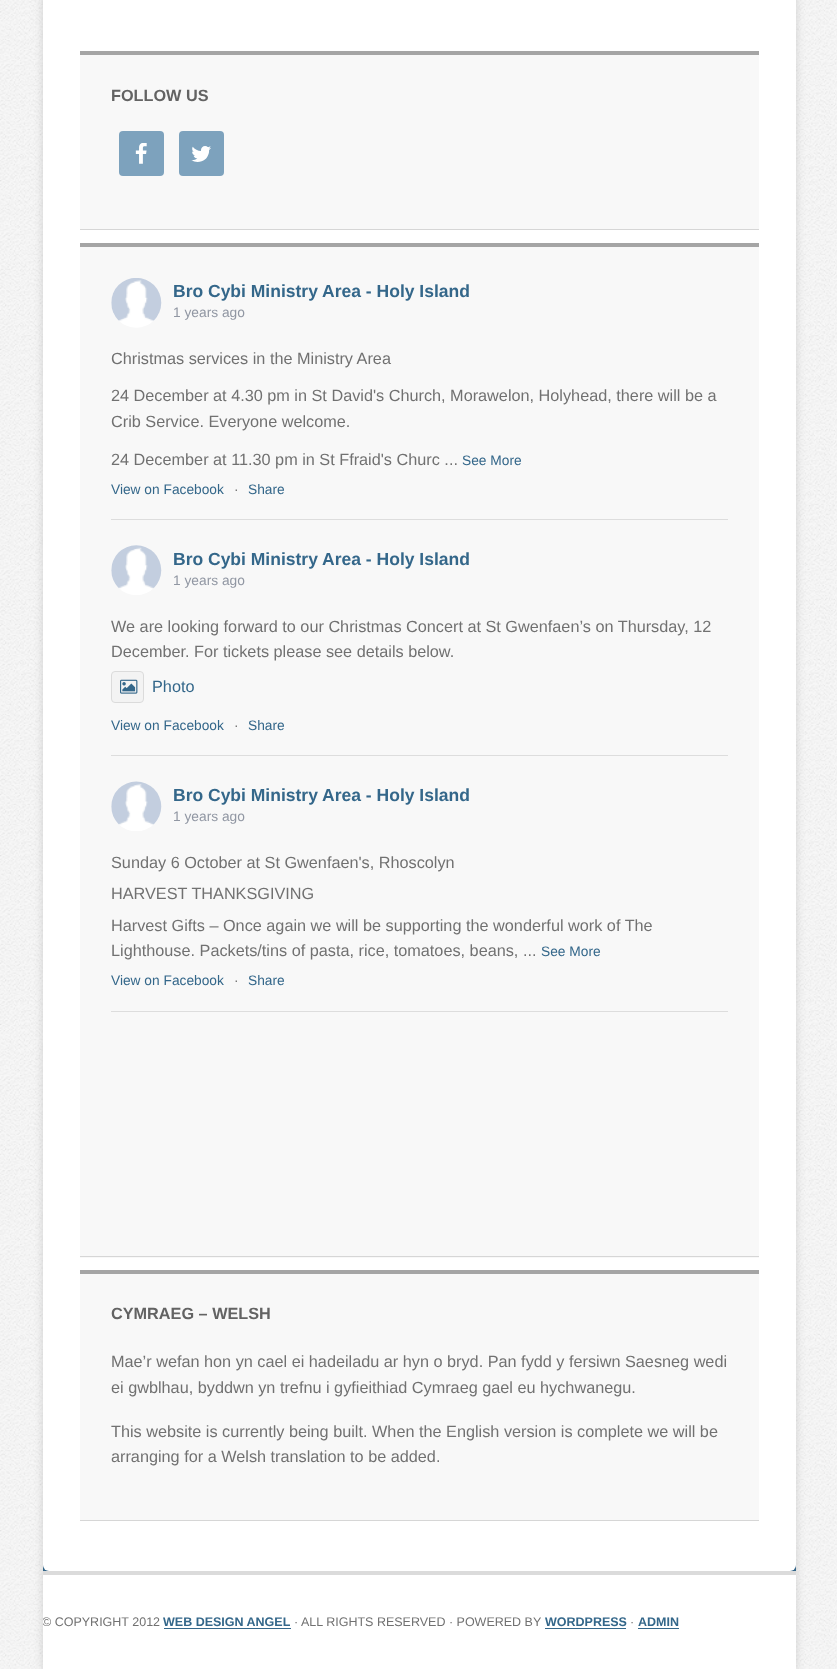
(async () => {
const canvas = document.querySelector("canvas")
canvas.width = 837
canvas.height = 1669
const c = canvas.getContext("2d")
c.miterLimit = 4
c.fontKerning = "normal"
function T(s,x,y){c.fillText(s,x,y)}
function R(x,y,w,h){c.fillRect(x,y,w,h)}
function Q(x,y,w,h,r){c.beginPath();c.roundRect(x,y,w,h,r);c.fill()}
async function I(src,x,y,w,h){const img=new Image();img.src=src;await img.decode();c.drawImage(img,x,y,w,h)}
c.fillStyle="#fff"
R(0,0,837,1669)
await I("1.png",0,0,837,1669)
c.fillStyle="#00000026"
c.filter="blur(5px)"
c.beginPath()
c.rect(43,-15,753,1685)
c.fill()
c.filter="none"
c.fillStyle="#376b90"
R(43,1565,753,6)
c.fillStyle="#fff"
R(43,1575,753,94)
c.fillStyle="#dbdbdb"
R(43,1571,753,4)
c.save()
c.beginPath()
c.rect(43,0,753,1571)
c.clip()
c.fillStyle="#00000026"
c.filter="blur(5px)"
c.beginPath()
c.roundRect(43,-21,753,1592,6)
c.fill()
c.filter="none"
c.restore()
c.fillStyle="#fff"
Q(43,-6,753,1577,6)
c.fillStyle="#f8f8f8"
R(80,55,679,174)
c.fillStyle="#a5a5a5"
R(80,51,679,4)
c.fillStyle="#d6d6d6"
R(80,229,679,1)
c.font="bold 16.25px Liberation Sans"
c.fillStyle="#636363"
T("FOLLOW US",111,101)
c.fillStyle="#7da2bd"
Q(119,131,45,45,4)
await I("2.png",135,143,12,21)
Q(179,131,45,45,4)
await I("3.png",191,146,20,16)
c.fillStyle="#f8f8f8"
R(80,247,679,1011)
c.fillStyle="#a5a5a5"
R(80,243,679,4)
c.fillStyle="#d6d6d6"
R(80,1256,679,1)
c.fillStyle="#ddd"
R(111,519,617,1)
await I("4.png",111,278,51,50)
c.font="bold 17.5px Liberation Sans"
c.fillStyle="#34678a"
T("Bro Cybi Ministry Area - Holy Island",173,297)
c.font="13.75px Liberation Sans"
c.fillStyle="#9197a3"
T("1 years ago",173,317)
c.font="16.25px Liberation Sans"
c.fillStyle="#717171"
T("Christmas services in the Ministry Area",111,364)
T("24 December at 4.30 pm in St David's Church, Morawelon, Holyhead, there will be a",111,401)
T("Crib Service. Everyone welcome.",111,427)
T("24 December at 11.30 pm in St Ffraid's Churc ...",111,465)
c.font="13.75px Liberation Sans"
c.fillStyle="#34678a"
T("See More",462,465)
T("View on Facebook",111,494)
c.fillStyle="#717171"
T("·",234,494)
c.fillStyle="#34678a"
T("Share",248,494)
c.fillStyle="#ddd"
R(111,755,617,1)
await I("5.png",111,545,51,50)
c.font="bold 17.5px Liberation Sans"
c.fillStyle="#34678a"
T("Bro Cybi Ministry Area - Holy Island",173,565)
c.font="13.75px Liberation Sans"
c.fillStyle="#9197a3"
T("1 years ago",173,585)
c.font="16.25px Liberation Sans"
c.fillStyle="#717171"
T("We are looking forward to our Christmas Concert at St Gwenfaen’s on Thursday, 12",111,632)
T("December. For tickets please see details below.",111,657)
c.fillStyle="#f3f3f3"
c.beginPath()
c.roundRect(111.5,671.5,32,31,3.5)
c.fill()
c.strokeStyle="#dbdbdb"
c.stroke()
await I("6.png",120,679,18,15)
c.fillStyle="#34678a"
T("Photo",152,692)
c.font="13.75px Liberation Sans"
T("View on Facebook",111,730)
c.fillStyle="#717171"
T("·",234,730)
c.fillStyle="#34678a"
T("Share",248,730)
c.fillStyle="#ddd"
R(111,1011,617,1)
await I("7.png",111,781,51,50)
c.font="bold 17.5px Liberation Sans"
c.fillStyle="#34678a"
T("Bro Cybi Ministry Area - Holy Island",173,801)
c.font="13.75px Liberation Sans"
c.fillStyle="#9197a3"
T("1 years ago",173,821)
c.font="16.25px Liberation Sans"
c.fillStyle="#717171"
T("Sunday 6 October at St Gwenfaen's, Rhoscolyn",111,868)
T("HARVEST THANKSGIVING",111,899)
T("Harvest Gifts – Once again we will be supporting the wonderful work of The",111,931)
T("Lighthouse. Packets/tins of pasta, rice, tomatoes, beans, ...",111,956)
c.font="13.75px Liberation Sans"
c.fillStyle="#34678a"
T("See More",541,956)
T("View on Facebook",111,985)
c.fillStyle="#717171"
T("·",234,985)
c.fillStyle="#34678a"
T("Share",248,985)
c.fillStyle="#f8f8f8"
R(80,1274,679,246)
c.fillStyle="#a5a5a5"
R(80,1270,679,4)
c.fillStyle="#d6d6d6"
R(80,1520,679,1)
c.font="bold 16.25px Liberation Sans"
c.fillStyle="#636363"
T("CYMRAEG – WELSH",111,1319)
c.font="16.25px Liberation Sans"
c.fillStyle="#717171"
T("Mae’r wefan hon yn cael ei hadeiladu ar hyn o bryd. Pan fydd y fersiwn Saesneg wedi",111,1367)
T("ei gwblhau, byddwn yn trefnu i gyfieithiad Cymraeg gael eu hychwanegu.",111,1393)
T("This website is currently being built. When the English version is complete we will be",111,1437)
T("arranging for a Welsh translation to be added.",111,1462)
c.save()
c.beginPath()
c.rect(43,1575,753,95)
c.clip()
c.font="12.5px Liberation Sans"
T("© COPYRIGHT 2012",42,1626)
c.restore()
c.font="bold 12.5px Liberation Sans"
c.fillStyle="#34678a"
T("WEB DESIGN ANGEL",163,1626)
R(164,1628,127,1)
c.font="12.5px Liberation Sans"
c.fillStyle="#717171"
T("· ALL RIGHTS RESERVED · POWERED BY",294,1626)
c.font="bold 12.5px Liberation Sans"
c.fillStyle="#34678a"
T("WORDPRESS",545,1626)
R(545,1628,81,1)
c.font="12.5px Liberation Sans"
c.fillStyle="#717171"
T("·",630,1626)
c.font="bold 12.5px Liberation Sans"
c.fillStyle="#34678a"
T("ADMIN",638,1626)
R(638,1628,41,1)
})()
